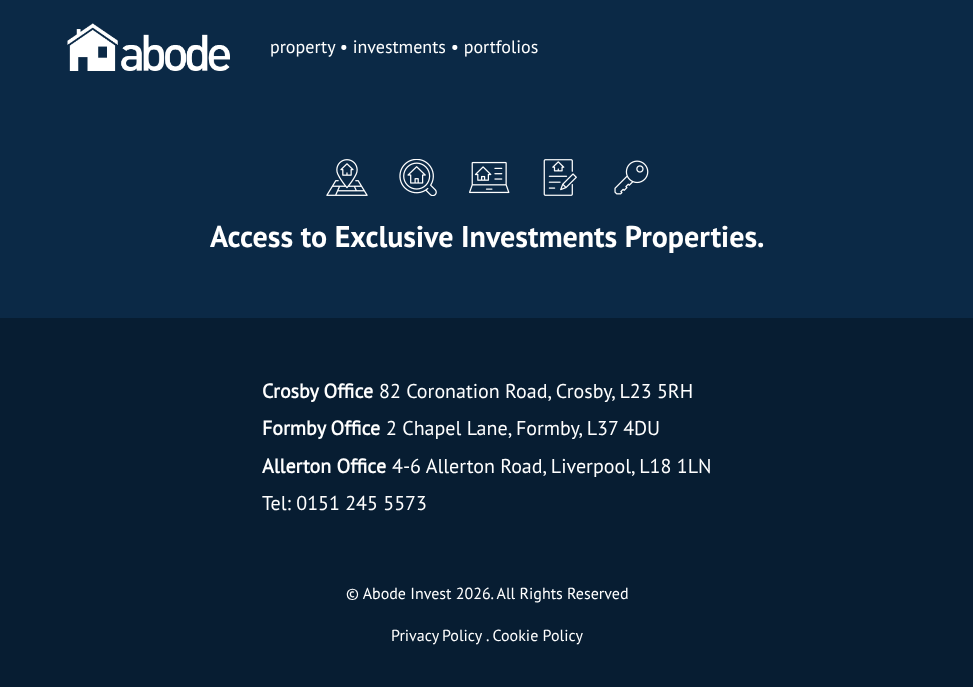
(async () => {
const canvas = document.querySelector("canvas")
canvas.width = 973
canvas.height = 687
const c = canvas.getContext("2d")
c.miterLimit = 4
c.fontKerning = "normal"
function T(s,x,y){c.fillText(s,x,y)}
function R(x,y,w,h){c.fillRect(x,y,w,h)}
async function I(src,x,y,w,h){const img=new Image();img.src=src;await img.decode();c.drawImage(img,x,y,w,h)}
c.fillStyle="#0b2946"
R(0,0,973,687)
await I("1.png",67,23,163,48)
c.font="18px PT Sans"
c.fillStyle="#fff"
T("property • investments • portfolios",270,53)
c.fillStyle="#071d32"
R(0,318,973,369)
await I("2.png",326,159,323,37)
c.font="bold 30px PT Sans"
c.fillStyle="#fff"
T("Access to Exclusive Investments Properties.",210,247)
c.font="bold 20px 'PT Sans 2'"
T("Crosby Office",262,398)
c.font="20px PT Sans"
T("82 Coronation Road, Crosby, L23 5RH",379,398)
c.font="bold 20px 'PT Sans 2'"
T("Formby Office",262,435)
c.font="20px PT Sans"
T("2 Chapel Lane, Formby, L37 4DU",386,435)
c.font="bold 20px 'PT Sans 2'"
T("Allerton Office",262,473)
c.font="20px PT Sans"
T("4-6 Allerton Road, Liverpool, L18 1LN",392,473)
T("Tel: 0151 245 5573",262,510)
c.font="16px PT Sans"
T("© Abode Invest 2026. All Rights Reserved",346,599)
c.wordSpacing="-1px"
T("Privacy Policy",391,641)
c.wordSpacing="0px"
T(". Cookie Policy",486,641)
})()
